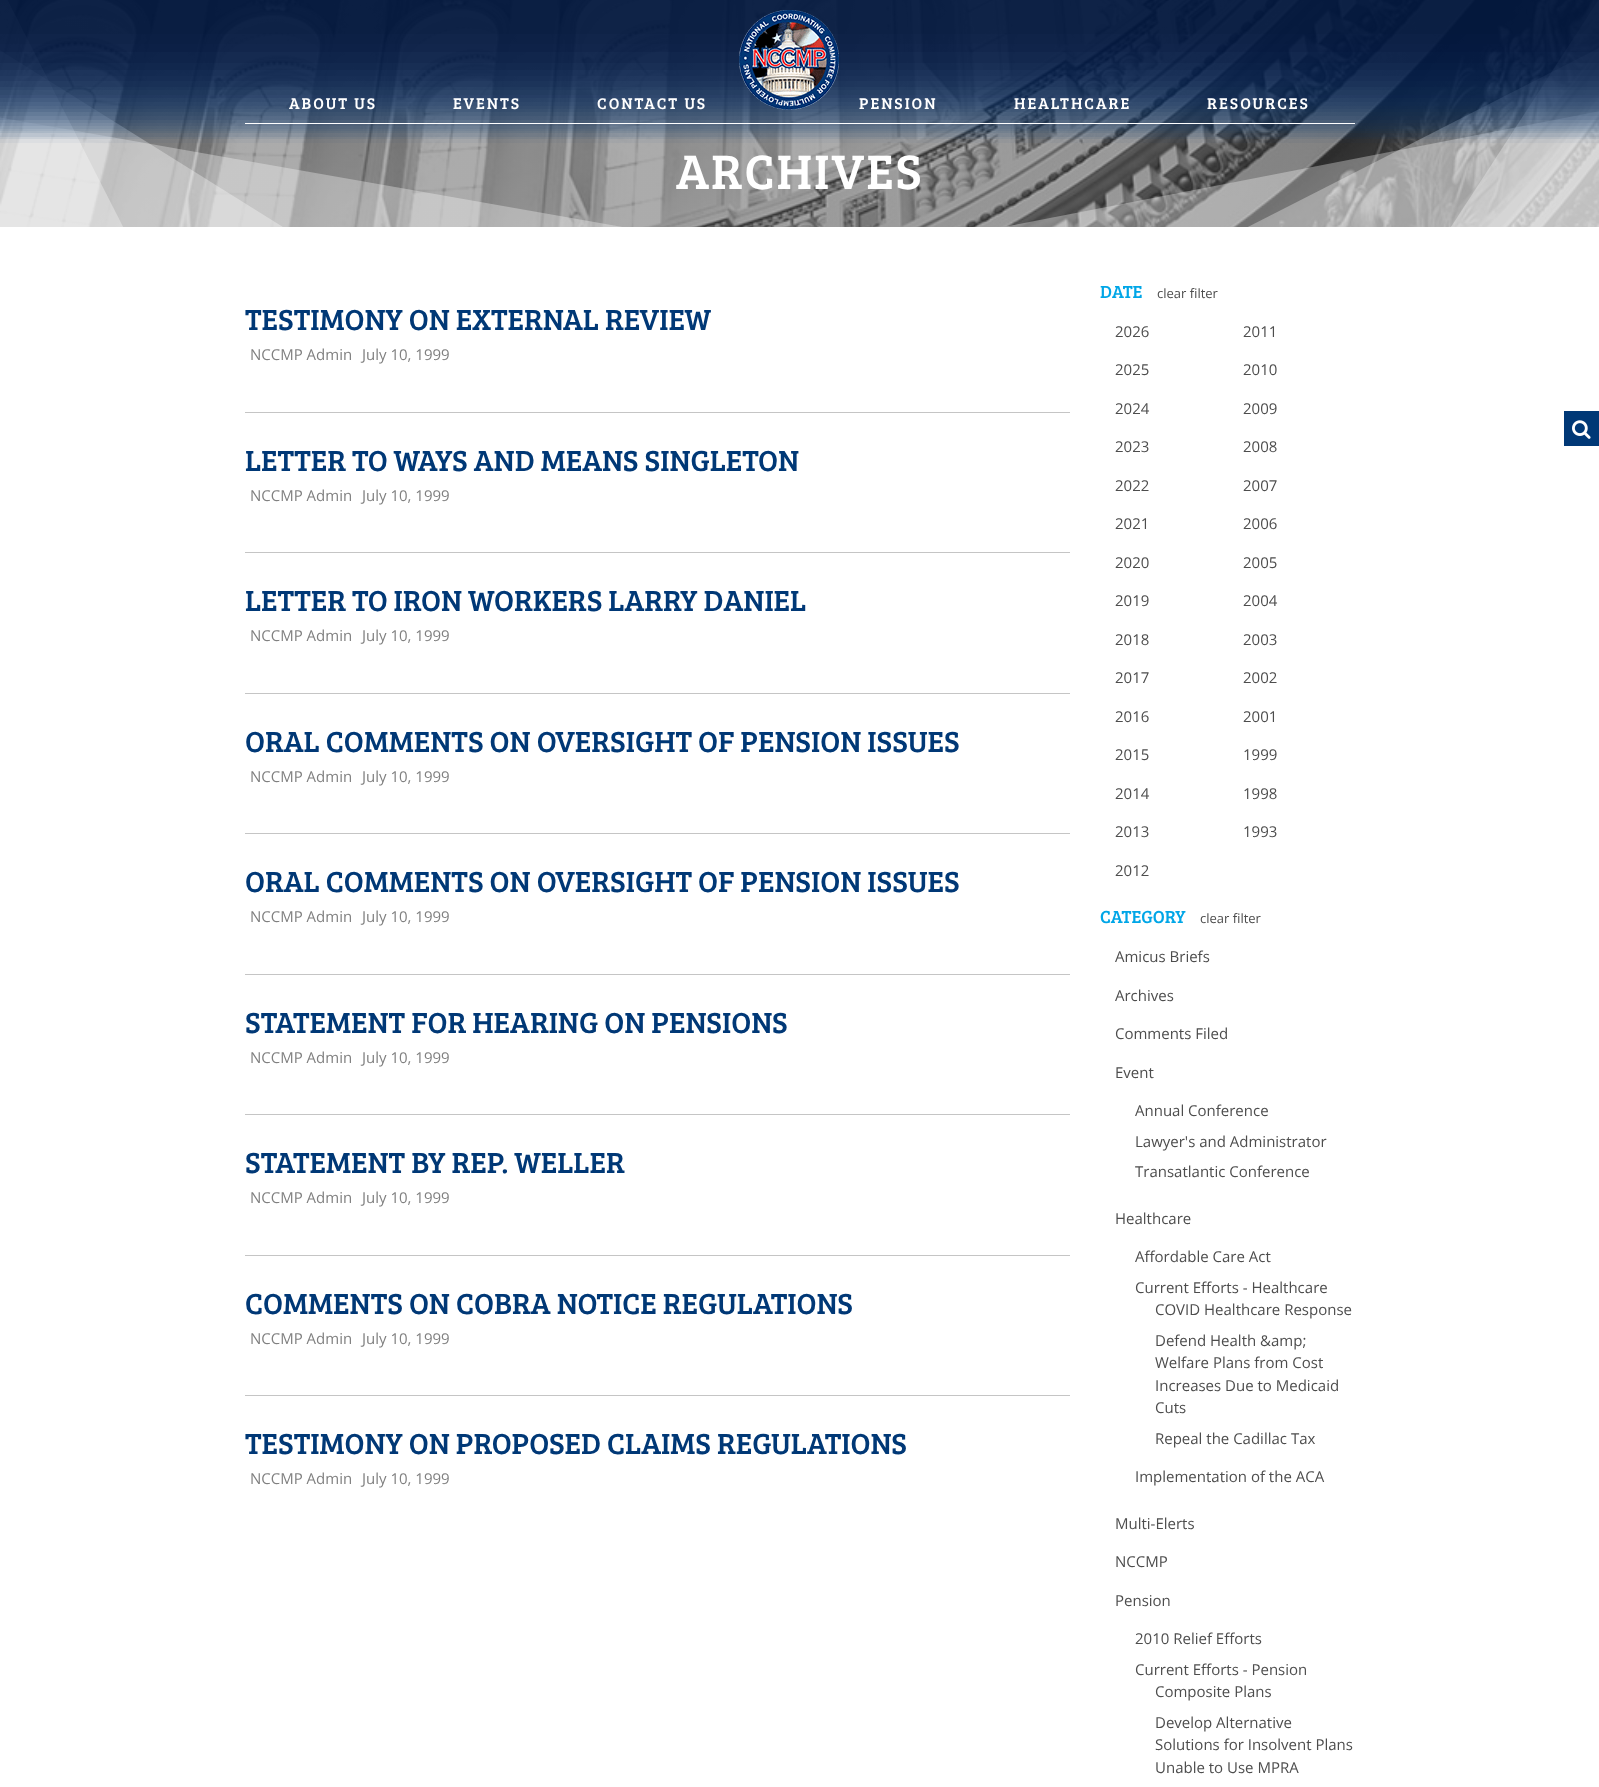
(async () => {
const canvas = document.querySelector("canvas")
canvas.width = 1599
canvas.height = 1787
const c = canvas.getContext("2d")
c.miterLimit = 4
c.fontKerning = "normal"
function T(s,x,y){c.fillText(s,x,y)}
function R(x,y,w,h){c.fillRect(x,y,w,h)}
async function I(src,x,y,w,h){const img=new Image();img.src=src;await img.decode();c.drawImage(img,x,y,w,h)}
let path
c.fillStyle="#fff"
R(0,0,1599,1787)
await I("3.png",0,0,1599,227)
c.save()
c.beginPath()
c.rect(0,0,1599,227)
c.clip()
c.fillStyle="#ffffff54"
path = new Path2D("M-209-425l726 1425l-116 60l-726-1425z")
c.fill(path)
path = new Path2D("M1032 872l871-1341l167 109l-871 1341z")
c.fill(path)
path = new Path2D("M-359-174l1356 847l-159 255l-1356-847z")
c.fill(path)
path = new Path2D("M657 528l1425-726l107 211l-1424 726z")
c.fill(path)
path = new Path2D("M-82 103l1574 277l-34 197l-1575-277z")
c.fill(path)
path = new Path2D("M283 367l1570-305l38 197l-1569 305z")
c.fill(path)
c.restore()
await I("1.png",0,0,1599,143)
c.letterSpacing="2px"
c.font="16px Bree Serif"
T("ABOUT US",289,109)
T("EVENTS",453,109)
T("CONTACT US",597,109)
await I("2.png",739,10,100,100)
T("PENSION",859,109)
T("HEALTHCARE",1014,109)
T("RESOURCES",1207,109)
R(245,123,1110,1)
c.font="50px Bree Serif"
T("ARCHIVES",676,189)
c.fillStyle="#c5c5c5"
R(245,412,825,1)
c.letterSpacing="0px"
c.font="30px Bree Serif"
c.fillStyle="#003876"
T("TESTIMONY ON EXTERNAL REVIEW",245,330)
c.font="15px Open Sans"
c.fillStyle="#808080"
T("NCCMP Admin",250,360)
T("July 10, 1999",362,360)
c.fillStyle="#c5c5c5"
R(245,552,825,1)
c.font="30px Bree Serif"
c.fillStyle="#003876"
T("LETTER TO WAYS AND MEANS SINGLETON",245,471)
c.font="15px Open Sans"
c.fillStyle="#808080"
T("NCCMP Admin",250,501)
T("July 10, 1999",362,501)
c.fillStyle="#c5c5c5"
R(245,693,825,1)
c.font="30px Bree Serif"
c.fillStyle="#003876"
T("LETTER TO IRON WORKERS LARRY DANIEL",245,611)
c.font="15px Open Sans"
c.fillStyle="#808080"
T("NCCMP Admin",250,641)
T("July 10, 1999",362,641)
c.fillStyle="#c5c5c5"
R(245,833,825,1)
c.font="30px Bree Serif"
c.fillStyle="#003876"
T("ORAL COMMENTS ON OVERSIGHT OF PENSION ISSUES",245,752)
c.font="15px Open Sans"
c.fillStyle="#808080"
T("NCCMP Admin",250,782)
T("July 10, 1999",362,782)
c.fillStyle="#c5c5c5"
R(245,974,825,1)
c.font="30px Bree Serif"
c.fillStyle="#003876"
T("ORAL COMMENTS ON OVERSIGHT OF PENSION ISSUES",245,892)
c.font="15px Open Sans"
c.fillStyle="#808080"
T("NCCMP Admin",250,922)
T("July 10, 1999",362,922)
c.fillStyle="#c5c5c5"
R(245,1114,825,1)
c.font="30px Bree Serif"
c.fillStyle="#003876"
T("STATEMENT FOR HEARING ON PENSIONS",245,1033)
c.font="15px Open Sans"
c.fillStyle="#808080"
T("NCCMP Admin",250,1063)
T("July 10, 1999",362,1063)
c.fillStyle="#c5c5c5"
R(245,1255,825,1)
c.font="30px Bree Serif"
c.fillStyle="#003876"
T("STATEMENT BY REP. WELLER",245,1173)
c.font="15px Open Sans"
c.fillStyle="#808080"
T("NCCMP Admin",250,1203)
T("July 10, 1999",362,1203)
c.fillStyle="#c5c5c5"
R(245,1395,825,1)
c.font="30px Bree Serif"
c.fillStyle="#003876"
T("COMMENTS ON COBRA NOTICE REGULATIONS",245,1314)
c.font="15px Open Sans"
c.fillStyle="#808080"
T("NCCMP Admin",250,1344)
T("July 10, 1999",362,1344)
c.font="30px Bree Serif"
c.fillStyle="#003876"
T("TESTIMONY ON PROPOSED CLAIMS REGULATIONS",245,1454)
c.font="15px Open Sans"
c.fillStyle="#808080"
T("NCCMP Admin",250,1484)
T("July 10, 1999",362,1484)
c.font="18px Bree Serif"
c.fillStyle="#00a6e7"
T("DATE",1100,298)
c.font="13px Open Sans"
c.fillStyle="#4d4d4d"
T("clear filter",1157,298)
c.font="15px Open Sans"
T("2026",1115,337)
T("2011",1243,337)
T("2025",1115,375)
T("2010",1243,375)
T("2024",1115,414)
T("2009",1243,414)
T("2023",1115,452)
T("2008",1243,452)
T("2022",1115,491)
T("2007",1243,491)
T("2021",1115,529)
T("2006",1243,529)
T("2020",1115,568)
T("2005",1243,568)
T("2019",1115,606)
T("2004",1243,606)
T("2018",1115,645)
T("2003",1243,645)
T("2017",1115,683)
T("2002",1243,683)
T("2016",1115,722)
T("2001",1243,722)
T("2015",1115,760)
T("1999",1243,760)
T("2014",1115,799)
T("1998",1243,799)
T("2013",1115,837)
T("1993",1243,837)
T("2012",1115,876)
c.font="18px Bree Serif"
c.fillStyle="#00a6e7"
T("CATEGORY",1100,923)
c.font="13px Open Sans"
c.fillStyle="#4d4d4d"
T("clear filter",1200,923)
c.font="15px Open Sans"
T("Amicus Briefs",1115,962)
T("Archives",1115,1001)
T("Comments Filed",1115,1039)
T("Event",1115,1078)
T("Annual Conference",1135,1116)
T("Lawyer's and Administrator",1135,1147)
T("Transatlantic Conference",1135,1177)
T("Healthcare",1115,1224)
T("Affordable Care Act",1135,1262)
T("Current Efforts - Healthcare",1135,1293)
T("COVID Healthcare Response",1155,1315)
T("Defend Health &amp;",1155,1346)
T("Welfare Plans from Cost",1155,1368)
T("Increases Due to Medicaid",1155,1391)
T("Cuts",1155,1413)
T("Repeal the Cadillac Tax",1155,1444)
T("Implementation of the ACA",1135,1482)
T("Multi-Elerts",1115,1529)
T("NCCMP",1115,1567)
T("Pension",1115,1606)
T("2010 Relief Efforts",1135,1644)
T("Current Efforts - Pension",1135,1675)
T("Composite Plans",1155,1697)
T("Develop Alternative",1155,1728)
T("Solutions for Insolvent Plans",1155,1750)
T("Unable to Use MPRA",1155,1773)
c.fillStyle="#003876"
R(1564,411,35,35)
await I("4.png",1572,420,19,19)
})()
